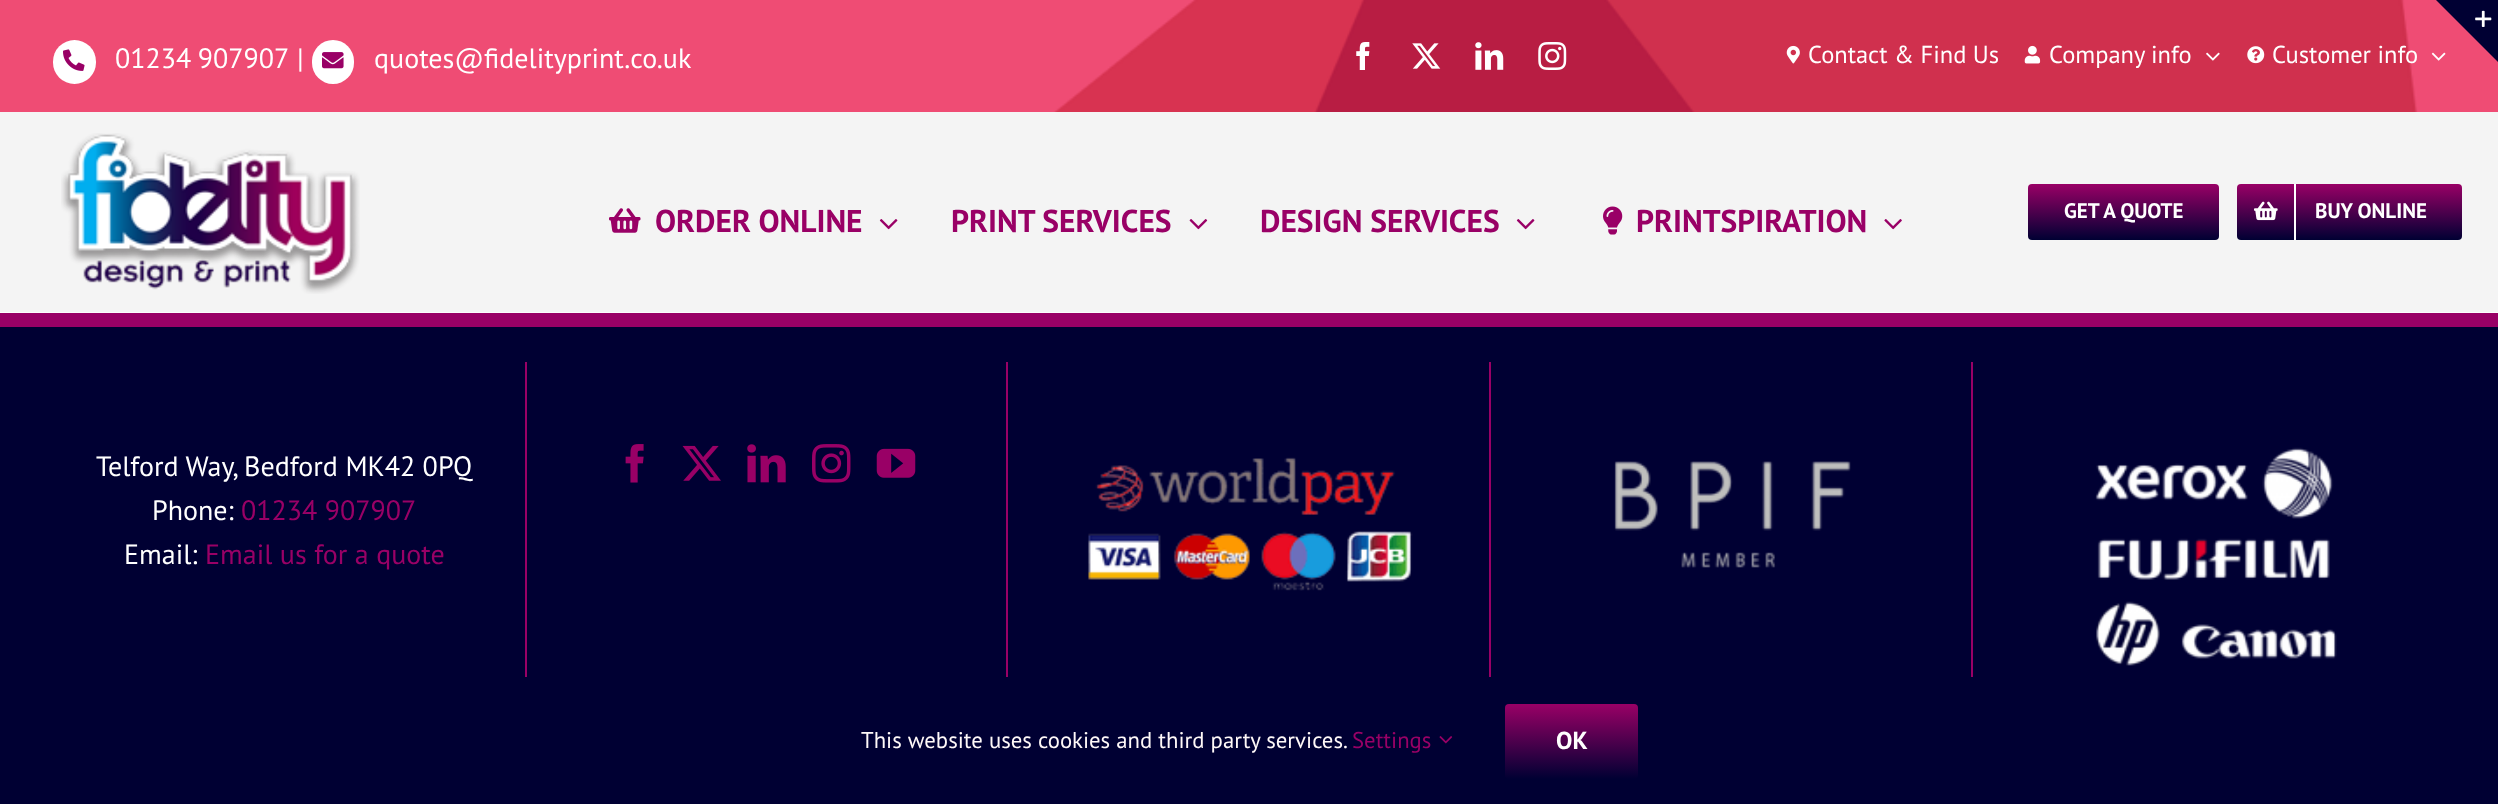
(async () => {
const canvas = document.querySelector("canvas")
canvas.width = 2498
canvas.height = 804
const c = canvas.getContext("2d")
c.miterLimit = 4
c.fontKerning = "normal"
function T(s,x,y){c.fillText(s,x,y)}
function R(x,y,w,h){c.fillRect(x,y,w,h)}
function Q(x,y,w,h,r){c.beginPath();c.roundRect(x,y,w,h,r);c.fill()}
async function I(src,x,y,w,h){const img=new Image();img.src=src;await img.decode();c.drawImage(img,x,y,w,h)}
let gradient, path
c.fillStyle="#fff"
R(0,0,2498,804)
c.fillStyle="#f2f2f2"
c.filter="blur(26px)"
c.beginPath()
c.rect(23,138,2457,158)
c.fill()
c.filter="none"
await I("2.png",0,0,2498,112)
await I("13.png",2431,52,15,9)
c.fillStyle="#003"
path = new Path2D("M2436 0h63v63z")
c.fill(path)
await I("1.png",2475,10,17,17)
c.fillStyle="#fff"
Q(53,40,43,44,21.5)
await I("3.png",63,49,22,22)
c.wordSpacing="-1px"
c.font="28px PT Sans"
T("01234 907907",115,68)
c.wordSpacing="0px"
T("|",297,68)
Q(312,40,42,44,21)
await I("4.png",322,52,22,17)
T("quotes@fidelityprint.co.uk",374,68)
await I("5.png",1356,42,14,28)
await I("6.png",1412,43,29,26)
await I("7.png",1475,42,29,28)
await I("8.png",1538,42,29,28)
await I("9.png",1786,45,14,19)
c.font="24.5px PT Sans"
T("Contact & Find Us",1808,63)
await I("10.png",2024,45,17,19)
T("Company info",2049,63)
await I("11.png",2206,52,14,9)
await I("12.png",2247,46,18,18)
T("Customer info",2272,63)
c.fillStyle="#f4f4f4"
R(0,112,2498,200)
await I("14.png",61,133,299,161)
await I("15.png",609,208,32,25)
c.font="bold 31.5px PT Sans"
c.fillStyle="#906"
T("ORDER ONLINE",655,232)
await I("16.png",879,219,19,11)
T("PRINT SERVICES",951,232)
await I("17.png",1189,219,19,11)
T("DESIGN SERVICES",1260,232)
await I("16.png",1516,219,19,11)
await I("18.png",1603,206,20,29)
T("PRINTSPIRATION",1636,232)
await I("19.png",1884,219,18,11)
gradient = c.createLinearGradient(2124,184,2124,240)
gradient.addColorStop(0,"#906")
gradient.addColorStop(1,"#003")
c.fillStyle = gradient
Q(2028,184,191,56,4)
c.font="bold 21px PT Sans"
c.fillStyle="#fff"
T("GET A QUOTE",2064,218)
gradient = c.createLinearGradient(2349,184,2349,240)
gradient.addColorStop(0,"#906")
gradient.addColorStop(1,"#003")
c.fillStyle = gradient
Q(2237,184,225,56,4)
c.fillStyle="#fff"
R(2294,184,2,56)
await I("20.png",2254,201,24,20)
T("BUY ONLINE",2315,218)
c.fillStyle="#003"
R(0,327,2498,350)
c.fillStyle="#906"
R(0,313,2498,14)
R(525,362,2,322)
c.font="28px PT Sans"
c.fillStyle="#fff"
T("Telford Way, Bedford MK42 0PQ",96,476)
T("Phone:",152,520)
c.fillStyle="#906"
T("01234 907907",241,520)
c.fillStyle="#fff"
T("Email:",124,564)
c.fillStyle="#906"
T("Email us for a quote",205,564)
R(1006,362,2,322)
await I("21.png",625,444,19,39)
await I("22.png",682,445,39,36)
await I("23.png",747,444,39,39)
await I("24.png",812,444,39,39)
await I("25.png",876,448,40,30)
R(1489,362,2,322)
await I("26.png",1088,457,325,134)
R(1971,362,2,322)
await I("27.png",1614,461,237,107)
await I("28.png",2095,447,242,219)
c.fillStyle="#003"
R(0,677,2498,127)
c.font="22.75px PT Sans"
c.fillStyle="#fff9f9"
T("This website uses cookies and third party services.",861,748)
c.fillStyle="#906"
T("Settings",1352,748)
await I("29.png",1439,736,14,8)
gradient = c.createLinearGradient(1572,704,1572,779)
gradient.addColorStop(0,"#906")
gradient.addColorStop(1,"#003")
c.fillStyle = gradient
Q(1505,704,133,75,4)
c.font="bold 24.5px PT Sans"
c.fillStyle="#fff"
T("OK",1556,749)
})()
